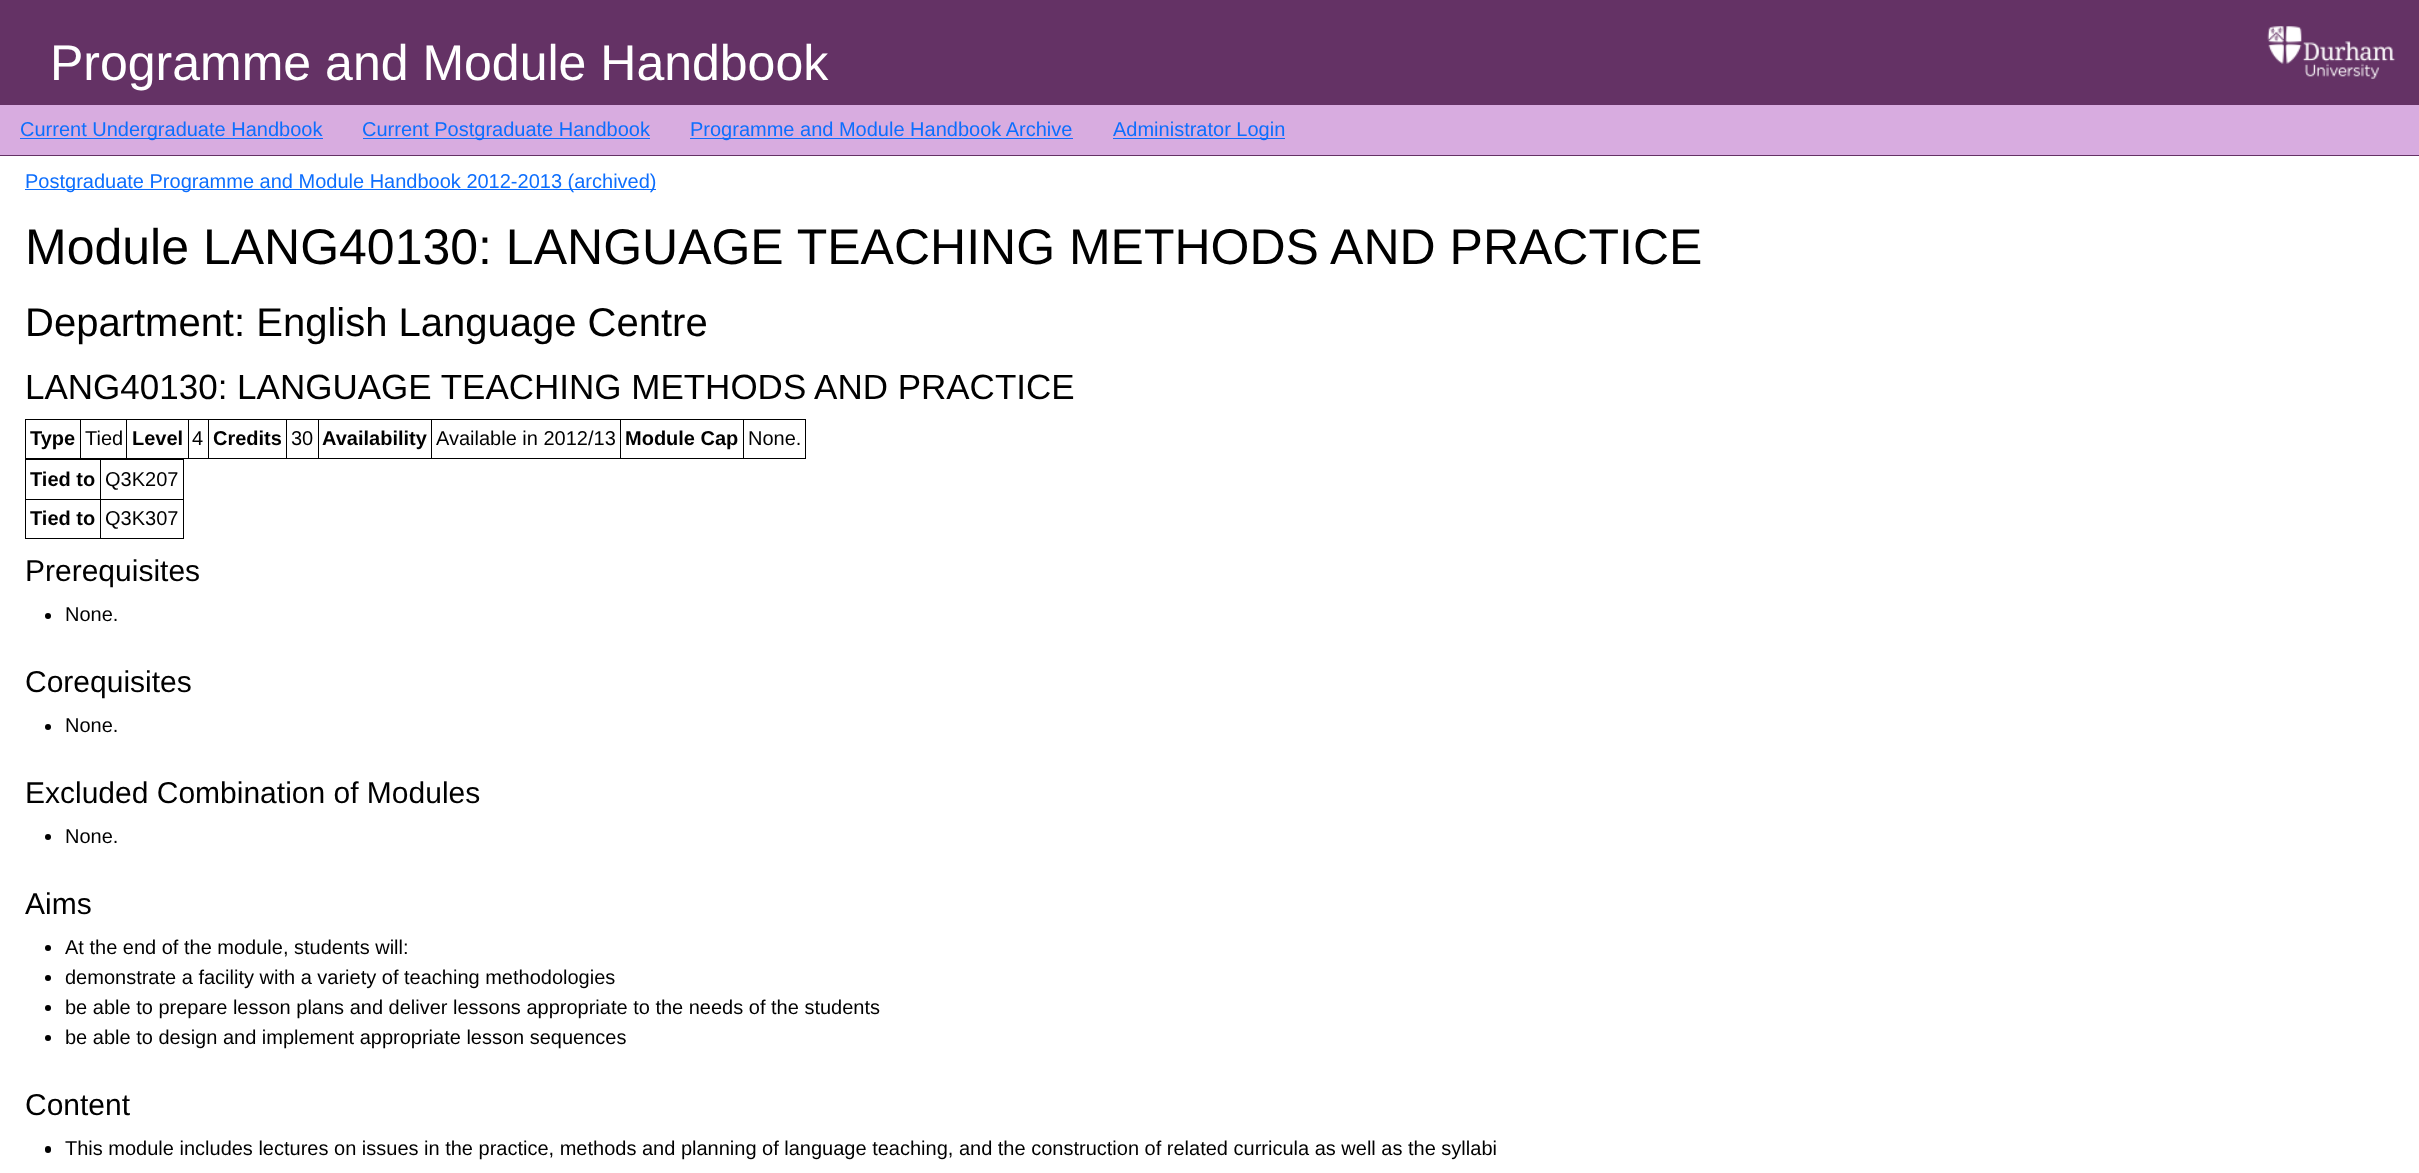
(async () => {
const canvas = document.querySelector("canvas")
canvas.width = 2419
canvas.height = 1173
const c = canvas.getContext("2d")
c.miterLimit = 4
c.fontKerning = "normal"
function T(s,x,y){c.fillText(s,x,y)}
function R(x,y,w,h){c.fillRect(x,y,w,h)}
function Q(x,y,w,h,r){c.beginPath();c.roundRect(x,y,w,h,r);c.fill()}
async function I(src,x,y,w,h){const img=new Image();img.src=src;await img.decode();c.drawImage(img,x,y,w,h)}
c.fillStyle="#fff"
R(0,0,2419,1173)
c.fillStyle="#643265"
R(0,0,2419,105)
c.font="50px Liberation Sans"
c.fillStyle="#fff"
T("Programme and Module Handbook",50,80)
await I("1.png",2267,26,129,53)
c.fillStyle="#d8ace0"
R(0,105,2419,50)
c.fillStyle="#643265"
R(0,155,2419,1)
c.fillStyle="#0d6efd"
R(20,138,303,1)
c.font="20px Liberation Sans"
T("Current Undergraduate Handbook",20,136)
R(363,138,287,1)
T("Current Postgraduate Handbook",362,136)
R(690,138,383,1)
T("Programme and Module Handbook Archive",690,136)
R(1113,138,172,1)
T("Administrator Login",1113,136)
R(25,189,631,1)
T("Postgraduate Programme and Module Handbook 2012-2013 (archived)",25,188)
c.font="50px Liberation Sans"
c.fillStyle="#000"
T("Module LANG40130: LANGUAGE TEACHING METHODS AND PRACTICE",25,264)
c.font="40px Liberation Sans"
T("Department: English Language Centre",25,336)
c.font="35px Liberation Sans"
T("LANG40130: LANGUAGE TEACHING METHODS AND PRACTICE",25,399)
R(743,419,63,1)
R(805,419,1,40)
R(743,458,63,1)
R(743,419,1,40)
R(620,419,124,1)
R(620,458,124,1)
R(620,419,1,40)
R(431,419,190,1)
R(431,458,190,1)
R(431,419,1,40)
R(318,419,115,1)
R(318,458,115,1)
R(318,419,1,40)
R(286,419,33,1)
R(286,458,33,1)
R(286,419,1,40)
R(208,419,80,1)
R(208,458,80,1)
R(208,419,1,40)
R(188,419,21,1)
R(188,458,21,1)
R(188,419,1,40)
R(126,419,63,1)
R(126,458,63,1)
R(126,419,1,40)
R(80,419,48,1)
R(80,458,48,1)
R(80,419,1,40)
R(25,419,56,1)
R(25,458,56,1)
R(25,419,1,40)
c.font="bold 20px Liberation Sans"
T("Type",30,445)
c.font="20px Liberation Sans"
T("Tied",85,445)
c.font="bold 20px Liberation Sans"
T("Level",132,445)
c.font="20px Liberation Sans"
T("4",192,445)
c.font="bold 20px Liberation Sans"
T("Credits",213,445)
c.font="20px Liberation Sans"
T("30",291,445)
c.font="bold 20px Liberation Sans"
T("Availability",322,445)
c.font="20px Liberation Sans"
T("Available in 2012/13",436,445)
c.font="bold 20px Liberation Sans"
T("Module Cap",625,445)
c.font="20px Liberation Sans"
T("None.",748,445)
R(100,459,84,1)
R(100,499,84,1)
R(183,499,1,40)
R(100,538,84,1)
R(100,499,1,40)
R(25,499,76,1)
R(100,459,1,41)
R(25,459,76,1)
R(25,538,76,1)
R(25,499,1,40)
R(25,459,1,41)
c.font="bold 20px Liberation Sans"
T("Tied to",30,486)
R(183,459,1,41)
c.font="20px Liberation Sans"
T("Q3K207",105,486)
c.font="bold 20px Liberation Sans"
T("Tied to",30,525)
c.font="20px Liberation Sans"
T("Q3K307",105,525)
c.font="30px Liberation Sans"
T("Prerequisites",25,581)
c.beginPath()
c.arc(48,616,3,0,7)
c.fill()
c.font="20px Liberation Sans"
T("None.",65,621)
c.font="30px Liberation Sans"
T("Corequisites",25,692)
c.beginPath()
c.arc(48,727,3,0,7)
c.fill()
c.font="20px Liberation Sans"
T("None.",65,732)
c.font="30px Liberation Sans"
T("Excluded Combination of Modules",25,803)
c.beginPath()
c.arc(48,837,3,0,7)
c.fill()
c.font="20px Liberation Sans"
T("None.",65,843)
c.font="30px Liberation Sans"
T("Aims",25,914)
c.beginPath()
c.arc(48,948,3,0,7)
c.fill()
c.font="20px Liberation Sans"
T("At the end of the module, students will:",65,954)
c.beginPath()
c.arc(48,978,3,0,7)
c.fill()
T("demonstrate a facility with a variety of teaching methodologies",65,984)
c.beginPath()
c.arc(48,1008,3,0,7)
c.fill()
T("be able to prepare lesson plans and deliver lessons appropriate to the needs of the students",65,1014)
c.beginPath()
c.arc(48,1038,3,0,7)
c.fill()
T("be able to design and implement appropriate lesson sequences",65,1044)
c.font="30px Liberation Sans"
T("Content",25,1115)
Q(45,1146,6,7,3)
c.font="20px Liberation Sans"
T("This module includes lectures on issues in the practice, methods and planning of language teaching, and the construction of related curricula as well as the syllabi",65,1155)
})()
